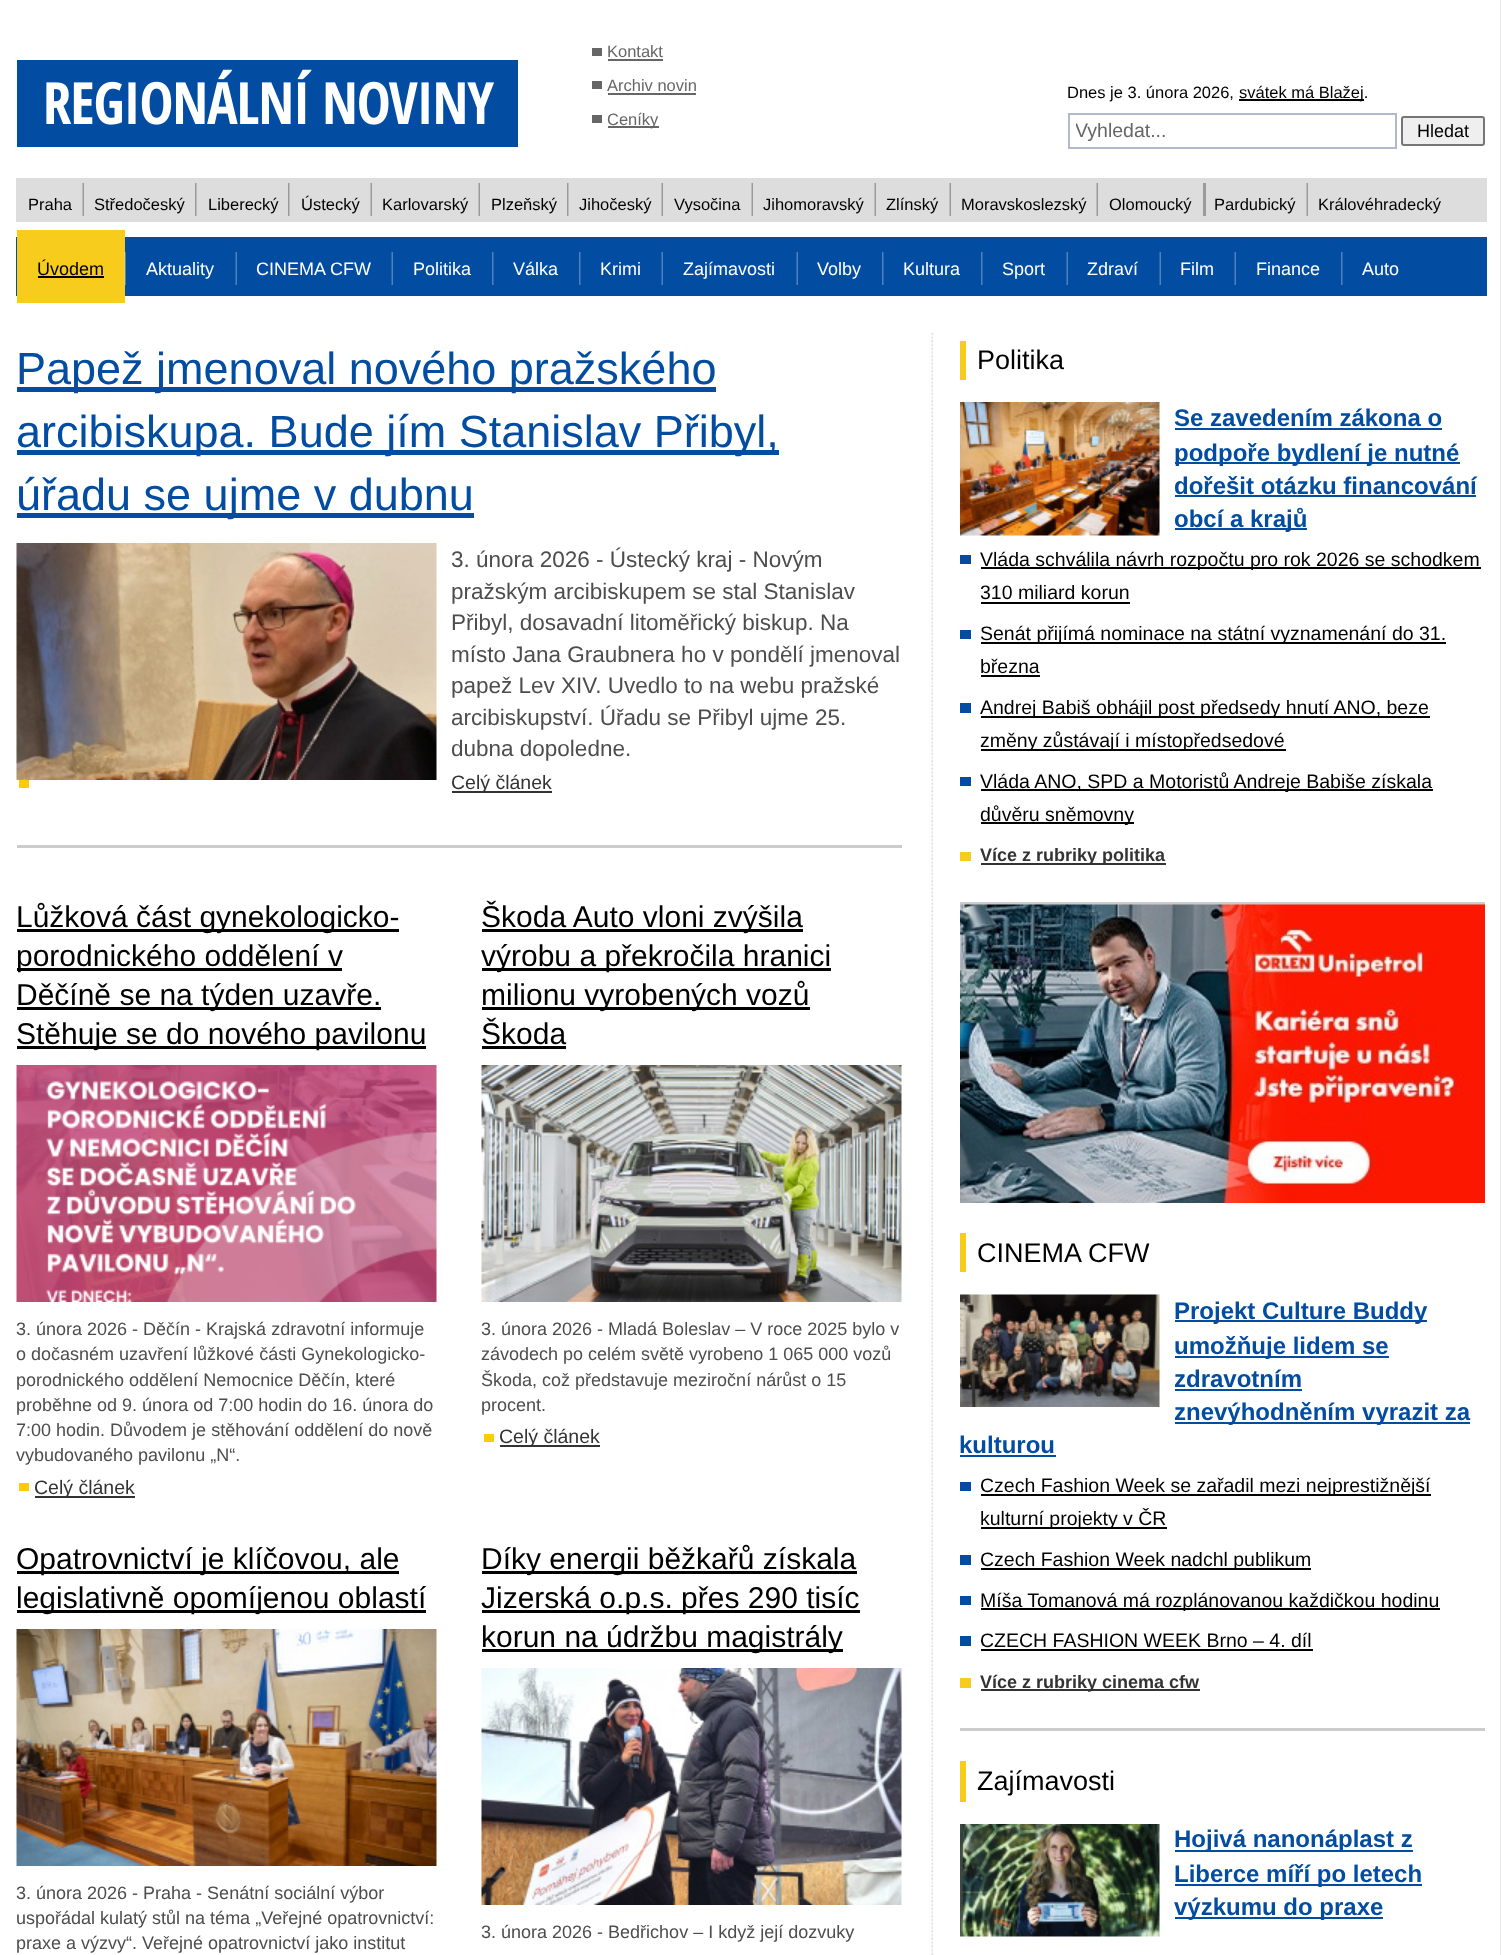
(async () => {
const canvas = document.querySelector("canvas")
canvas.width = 1501
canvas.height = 1955
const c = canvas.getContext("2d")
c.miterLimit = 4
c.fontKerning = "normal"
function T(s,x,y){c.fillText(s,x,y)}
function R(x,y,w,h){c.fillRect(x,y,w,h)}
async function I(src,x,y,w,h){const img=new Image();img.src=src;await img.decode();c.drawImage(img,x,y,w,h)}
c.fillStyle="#e9e9e9"
R(0,0,1501,1955)
c.fillStyle="#fff"
R(0,0,1500,1955)
await I("1.png",17,60,501,87)
c.fillStyle="#666"
R(592,48,10,8)
c.font="16.5px Liberation Sans"
T("Kontakt",607,57)
R(608,59,55,2)
R(592,81,10,8)
T("Archiv novin",607,91)
R(608,93,88,2)
R(592,115,10,8)
R(608,126,51,2)
T("Ceníky",607,125)
c.fillStyle="#000"
T("Dnes je 3. února 2026,",1067,98)
R(1239,99,125,2)
T("svátek má Blažej.",1239,98)
c.strokeStyle="#b1bacb"
c.lineWidth=2
c.strokeRect(1069,114,327,34)
c.save()
c.beginPath()
c.rect(1076,119,316,22)
c.clip()
c.font="19.5px Liberation Sans"
c.fillStyle="#666"
T("Vyhledat...",1075,137)
c.restore()
c.fillStyle="#efefef"
c.beginPath()
c.roundRect(1402,117,82,28,2)
c.fill()
c.strokeStyle="#767676"
c.stroke()
c.font="18px Liberation Sans"
c.fillStyle="#000"
T("Hledat",1417,137)
c.fillStyle="#ddd"
R(16,178,1471,44)
c.font="16.5px Liberation Sans"
c.fillStyle="#000"
T("Praha",28,210)
await I("2.png",82,183,2,33)
T("Středočeský",94,210)
await I("3.png",195,183,2,33)
T("Liberecký",208,210)
await I("3.png",288,183,2,33)
T("Ústecký",301,210)
await I("2.png",370,183,2,33)
T("Karlovarský",382,210)
await I("2.png",478,183,2,33)
T("Plzeňský",491,210)
await I("3.png",567,183,2,33)
T("Jihočeský",579,210)
await I("2.png",661,183,2,33)
T("Vysočina",674,210)
await I("2.png",751,183,2,33)
T("Jihomoravský",763,210)
await I("2.png",874,183,2,33)
T("Zlínský",886,210)
await I("2.png",949,183,2,33)
T("Moravskoslezský",961,210)
await I("2.png",1096,183,2,33)
T("Olomoucký",1109,210)
c.fillStyle="#9b9b9b"
R(1203,183,3,33)
c.fillStyle="#000"
T("Pardubický",1214,210)
await I("2.png",1306,183,2,33)
T("Královéhradecký",1318,210)
c.fillStyle="#024da1"
R(16,237,1471,59)
c.fillStyle="#f8cc1c"
R(17,230,108,73)
c.font="18px Liberation Sans"
c.fillStyle="#000"
T("Úvodem",37,275)
R(38,276,66,2)
await I("4.png",124,252,2,33)
c.fillStyle="#fff"
T("Aktuality",146,275)
await I("5.png",235,252,2,33)
T("CINEMA CFW",256,275)
await I("5.png",391,252,2,33)
T("Politika",413,275)
await I("6.png",492,252,2,33)
T("Válka",513,275)
await I("6.png",579,252,2,33)
T("Krimi",600,275)
await I("5.png",661,252,2,33)
T("Zajímavosti",683,275)
await I("5.png",796,252,2,33)
T("Volby",817,275)
await I("6.png",882,252,2,33)
T("Kultura",903,275)
await I("6.png",981,252,2,33)
T("Sport",1002,275)
await I("5.png",1066,252,2,33)
T("Zdraví",1087,275)
await I("5.png",1159,252,2,33)
T("Film",1180,275)
await I("5.png",1234,252,2,33)
T("Finance",1256,275)
await I("6.png",1341,252,2,33)
T("Auto",1362,275)
await I("7.png",931,333,3,1622)
c.fillStyle="#024da1"
R(17,387,699,5)
c.font="45px Liberation Sans"
T("Papež jmenoval nového pražského",16,384)
R(17,450,762,5)
T("arcibiskupa. Bude jím Stanislav Přibyl,",16,447)
R(17,513,457,5)
T("úřadu se ujme v dubnu",16,510)
await I("8.png",16,543,421,237)
c.font="22.5px Liberation Sans"
c.fillStyle="#4d4d4d"
T("3. února 2026 - Ústecký kraj - Novým",451,567)
T("pražským arcibiskupem se stal Stanislav",451,599)
T("Přibyl, dosavadní litoměřický biskup. Na",451,630)
T("místo Jana Graubnera ho v pondělí jmenoval",451,662)
T("papež Lev XIV. Uvedlo to na webu pražské",451,693)
T("arcibiskupství. Úřadu se Přibyl ujme 25.",451,725)
T("dubna dopoledne.",451,756)
c.fillStyle="#ffcb06"
R(19,780,10,8)
c.fillStyle="#333"
R(452,791,100,2)
c.font="19.5px Liberation Sans"
T("Celý článek",451,789)
c.fillStyle="#ccc"
R(17,845,885,3)
c.fillStyle="#000"
R(17,929,382,3)
c.font="30px Liberation Sans"
T("Lůžková část gynekologicko-",16,927)
R(17,968,325,3)
T("porodnického oddělení v",16,966)
R(17,1007,364,3)
T("Děčíně se na týden uzavře.",16,1005)
R(17,1046,409,3)
T("Stěhuje se do nového pavilonu",16,1044)
await I("9.png",16,1065,421,237)
c.font="18px Liberation Sans"
c.fillStyle="#4d4d4d"
T("3. února 2026 - Děčín - Krajská zdravotní informuje",16,1335)
T("o dočasném uzavření lůžkové části Gynekologicko-",16,1360)
T("porodnického oddělení Nemocnice Děčín, které",16,1386)
T("proběhne od 9. února od 7:00 hodin do 16. února do",16,1411)
T("7:00 hodin. Důvodem je stěhování oddělení do nově",16,1436)
T("vybudovaného pavilonu „N“.",16,1461)
c.fillStyle="#ffcb06"
R(19,1483,10,8)
c.fillStyle="#333"
R(35,1496,100,2)
c.font="19.5px Liberation Sans"
T("Celý článek",34,1494)
c.fillStyle="#000"
R(482,929,321,3)
c.font="30px Liberation Sans"
T("Škoda Auto vloni zvýšila",481,927)
R(482,968,349,3)
T("výrobu a překročila hranici",481,966)
R(482,1007,328,3)
T("milionu vyrobených vozů",481,1005)
T("Škoda",481,1044)
R(482,1046,84,3)
await I("10.png",481,1065,421,237)
c.font="18px Liberation Sans"
c.fillStyle="#4d4d4d"
T("3. února 2026 - Mladá Boleslav – V roce 2025 bylo v",481,1335)
T("závodech po celém světě vyrobeno 1 065 000 vozů",481,1360)
T("Škoda, což představuje meziroční nárůst o 15",481,1386)
T("procent.",481,1411)
c.fillStyle="#ffcb06"
R(484,1434,10,8)
c.fillStyle="#333"
R(500,1445,100,2)
c.font="19.5px Liberation Sans"
T("Celý článek",499,1443)
c.fillStyle="#000"
R(17,1571,382,3)
c.font="30px Liberation Sans"
T("Opatrovnictví je klíčovou, ale",16,1569)
R(17,1610,409,3)
T("legislativně opomíjenou oblastí",16,1608)
await I("11.png",16,1629,421,237)
c.font="18px Liberation Sans"
c.fillStyle="#4d4d4d"
T("3. února 2026 - Praha - Senátní sociální výbor",16,1899)
T("uspořádal kulatý stůl na téma „Veřejné opatrovnictví:",16,1924)
T("praxe a výzvy“. Veřejné opatrovnictví jako institut",16,1949)
c.fillStyle="#000"
R(482,1571,375,3)
c.font="30px Liberation Sans"
T("Díky energii běžkařů získala",481,1569)
R(482,1610,378,3)
T("Jizerská o.p.s. přes 290 tisíc",481,1608)
R(482,1649,361,3)
T("korun na údržbu magistrály",481,1647)
await I("12.png",481,1668,421,237)
c.font="18px Liberation Sans"
c.fillStyle="#4d4d4d"
T("3. února 2026 - Bedřichov – I když její dozvuky",481,1938)
c.fillStyle="#f8cc1c"
R(960,341,6,39)
c.font="27px Liberation Sans"
c.fillStyle="#000"
T("Politika",977,369)
await I("13.png",960,402,200,134)
c.font="bold 24px Liberation Sans"
c.fillStyle="#024da1"
T("Se zavedením zákona o",1174,426)
R(1175,428,267,2)
R(1175,462,285,2)
T("podpoře bydlení je nutné",1174,461)
T("dořešit otázku financování",1174,494)
R(1175,495,301,2)
R(1175,528,132,2)
T("obcí a krajů",1174,527)
R(960,555,11,9)
c.fillStyle="#000"
R(981,567,500,2)
c.font="19.5px Liberation Sans"
T("Vláda schválila návrh rozpočtu pro rok 2026 se schodkem",980,566)
T("310 miliard korun",980,599)
R(981,602,149,2)
c.fillStyle="#024da1"
R(960,630,11,9)
c.fillStyle="#000"
R(981,642,465,2)
T("Senát přijímá nominace na státní vyznamenání do 31.",980,640)
T("března",980,673)
R(981,675,59,2)
c.fillStyle="#024da1"
R(960,703,11,10)
c.fillStyle="#000"
R(981,716,449,2)
T("Andrej Babiš obhájil post předsedy hnutí ANO, beze",980,714)
R(981,749,305,2)
T("změny zůstávají i místopředsedové",980,747)
c.fillStyle="#024da1"
R(960,777,11,9)
c.fillStyle="#000"
R(981,789,452,2)
T("Vláda ANO, SPD a Motoristů Andreje Babiše získala",980,788)
R(981,822,153,2)
T("důvěru sněmovny",980,821)
c.fillStyle="#f8cc1c"
R(960,852,11,9)
c.fillStyle="#ccc"
R(960,902,525,3)
c.fillStyle="#333"
R(981,863,185,2)
c.font="bold 18px Liberation Sans"
T("Více z rubriky politika",980,861)
await I("14.png",960,904,525,299)
c.fillStyle="#f8cc1c"
R(960,1233,6,39)
c.font="27px Liberation Sans"
c.fillStyle="#000"
T("CINEMA CFW",977,1262)
await I("15.png",960,1294,200,113)
c.fillStyle="#024da1"
R(1175,1320,252,2)
c.font="bold 24px Liberation Sans"
T("Projekt Culture Buddy",1174,1319)
R(1175,1356,214,2)
T("umožňuje lidem se",1174,1354)
T("zdravotním",1174,1387)
R(1175,1389,127,2)
R(1175,1422,295,2)
T("znevýhodněním vyrazit za",1174,1420)
T("kulturou",959,1453)
R(960,1455,96,2)
R(960,1482,11,9)
c.fillStyle="#000"
R(981,1494,450,2)
c.font="19.5px Liberation Sans"
T("Czech Fashion Week se zařadil mezi nejprestižnější",980,1492)
R(981,1527,186,2)
T("kulturní projekty v ČR",980,1525)
c.fillStyle="#024da1"
R(960,1555,11,10)
c.fillStyle="#000"
R(981,1568,330,2)
T("Czech Fashion Week nadchl publikum",980,1566)
c.fillStyle="#024da1"
R(960,1596,11,9)
c.fillStyle="#000"
R(981,1608,459,2)
T("Míša Tomanová má rozplánovanou každičkou hodinu",980,1607)
c.fillStyle="#024da1"
R(960,1636,11,10)
c.fillStyle="#000"
T("CZECH FASHION WEEK Brno – 4. díl",980,1647)
R(981,1649,332,2)
c.fillStyle="#f8cc1c"
R(960,1678,11,10)
c.fillStyle="#ccc"
R(960,1728,525,3)
c.fillStyle="#333"
R(981,1689,219,2)
c.font="bold 18px Liberation Sans"
T("Více z rubriky cinema cfw",980,1688)
c.fillStyle="#f8cc1c"
R(960,1761,6,41)
c.font="27px Liberation Sans"
c.fillStyle="#000"
T("Zajímavosti",977,1790)
await I("16.png",960,1824,200,113)
c.fillStyle="#024da1"
R(1175,1850,238,2)
c.font="bold 24px Liberation Sans"
T("Hojivá nanonáplast z",1174,1847)
R(1175,1884,247,2)
T("Liberce míří po letech",1174,1882)
R(1175,1917,208,2)
T("výzkumu do praxe",1174,1915)
})()
